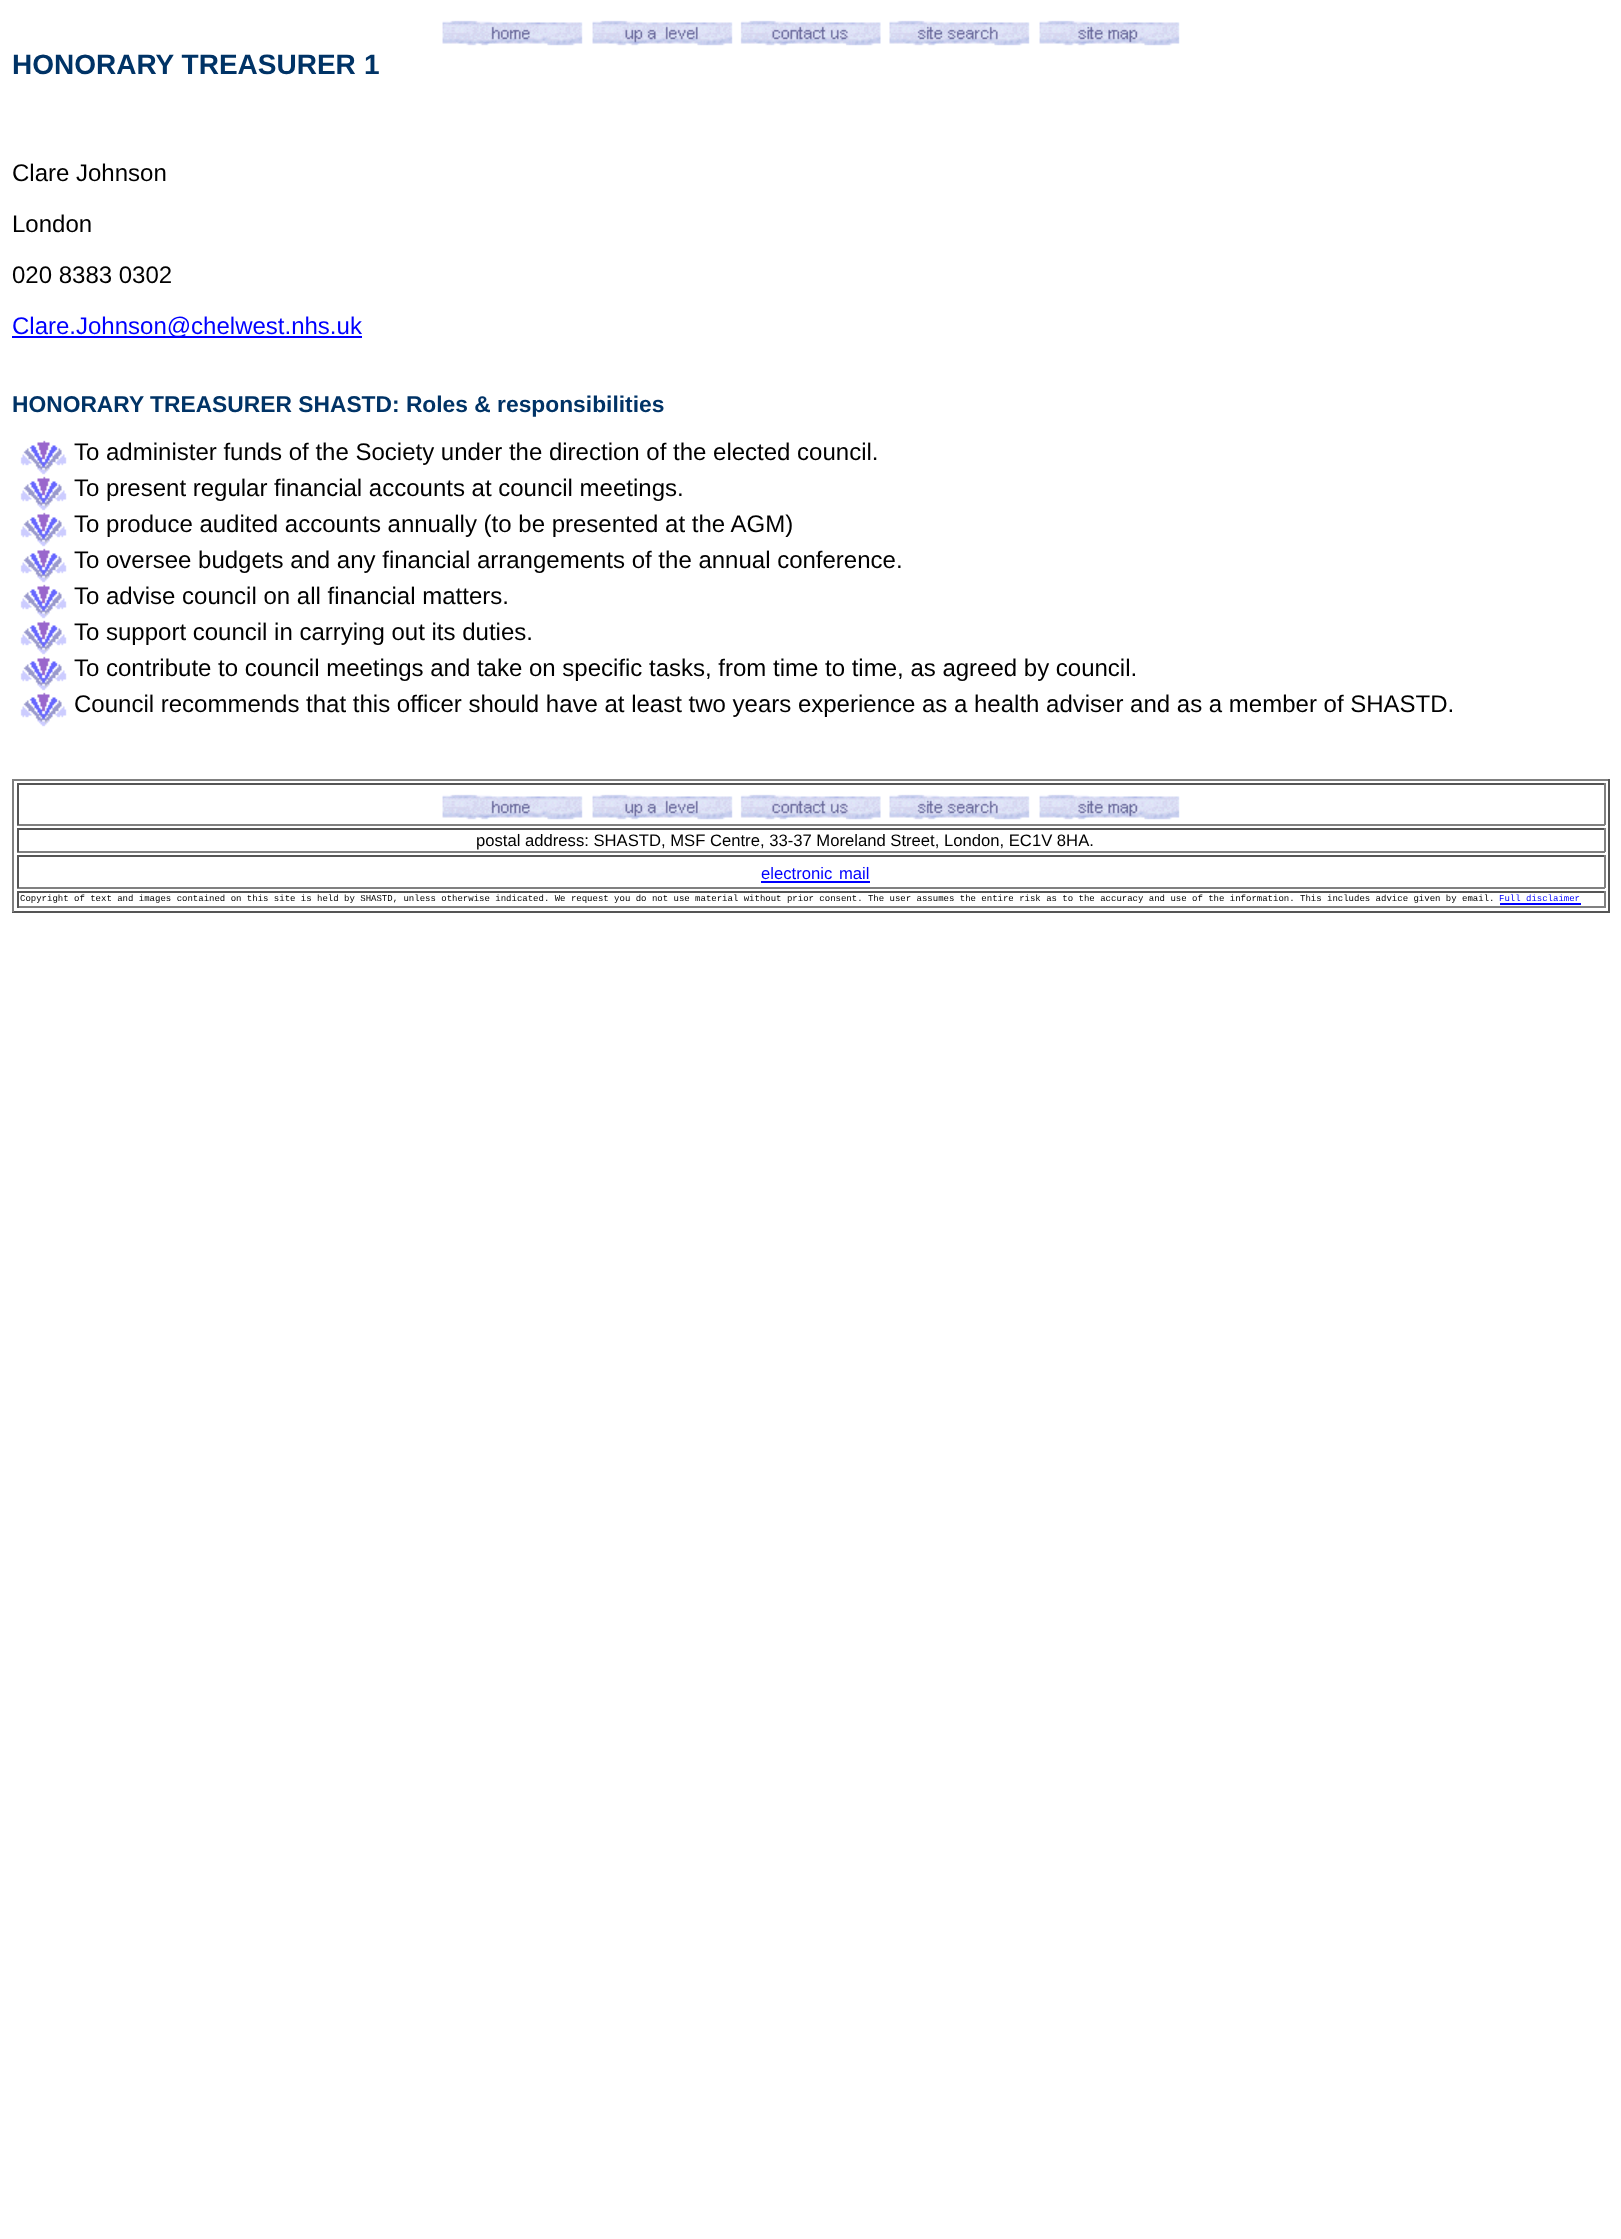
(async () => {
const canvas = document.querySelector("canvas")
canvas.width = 1621
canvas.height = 2239
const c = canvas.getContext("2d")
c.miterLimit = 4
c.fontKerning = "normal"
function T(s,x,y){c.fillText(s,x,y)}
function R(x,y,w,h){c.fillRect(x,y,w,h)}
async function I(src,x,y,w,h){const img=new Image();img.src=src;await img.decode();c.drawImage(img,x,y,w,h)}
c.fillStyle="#fff"
R(0,0,1621,2239)
await I("1.png",442,20,141,26)
await I("2.png",592,20,141,26)
await I("3.png",740,20,141,26)
await I("4.png",889,20,141,26)
await I("5.png",1039,20,141,26)
c.font="bold 28px Liberation Sans"
c.fillStyle="#036"
T("HONORARY TREASURER",12,74)
T("1",364,74)
c.font="24px Liberation Sans"
c.fillStyle="#000"
T("Clare Johnson",12,181)
T("London",12,232)
T("020 8383 0302",12,283)
c.fillStyle="#00f"
R(12,336,350,2)
T("Clare.Johnson@chelwest.nhs.uk",12,334)
c.font="bold 22.8px Liberation Sans"
c.fillStyle="#036"
T("HONORARY TREASURER SHASTD: Roles & responsibilities",12,412)
await I("6.png",20,440,47,35)
c.font="24px Liberation Sans"
c.fillStyle="#000"
T("To administer funds of the Society under the direction of the elected council.",74,460)
await I("6.png",20,476,47,35)
T("To present regular financial accounts at council meetings.",74,496)
await I("6.png",20,512,47,35)
T("To produce audited accounts annually (to be presented at the AGM)",74,532)
await I("6.png",20,548,47,35)
T("To oversee budgets and any financial arrangements of the annual conference.",74,568)
await I("6.png",20,584,47,35)
T("To advise council on all financial matters.",74,604)
await I("6.png",20,620,47,35)
T("To support council in carrying out its duties.",74,640)
await I("6.png",20,656,47,35)
T("To contribute to council meetings and take on specific tasks, from time to time, as agreed by council.",74,676)
await I("6.png",20,692,47,35)
T("Council recommends that this officer should have at least two years experience as a health adviser and as a member of SHASTD.",74,712)
c.fillStyle="#808080"
R(12,779,1598,2)
c.fillStyle="#555"
R(1608,779,2,133)
R(12,911,1598,2)
c.fillStyle="#808080"
R(12,779,2,133)
c.fillStyle="#555"
R(17,783,1588,2)
c.fillStyle="#808080"
R(1604,783,2,42)
R(17,824,1588,2)
c.fillStyle="#555"
R(17,783,2,42)
await I("1.png",442,794,141,26)
await I("2.png",592,794,141,26)
await I("3.png",740,794,141,26)
await I("4.png",889,794,141,26)
await I("5.png",1039,794,141,26)
R(17,828,1588,2)
c.fillStyle="#808080"
R(1604,828,2,24)
R(17,851,1588,2)
c.fillStyle="#555"
R(17,828,2,24)
c.font="16.65px Liberation Sans"
c.fillStyle="#000"
T("postal address: SHASTD, MSF Centre, 33-37 Moreland Street, London, EC1V 8HA.",476,846)
c.fillStyle="#555"
R(17,855,1588,2)
c.fillStyle="#808080"
R(1604,855,2,33)
R(17,887,1588,2)
c.fillStyle="#555"
R(17,855,2,33)
c.fillStyle="#00f"
T("electronic",761,879)
R(761,881,109,2)
T("mail",839,879)
c.fillStyle="#555"
R(17,891,1588,2)
c.fillStyle="#808080"
R(1604,891,2,17)
R(17,906,1588,2)
c.fillStyle="#555"
R(17,891,2,17)
c.font="9px Liberation Mono"
c.fillStyle="#000"
T("Copyright of text and images contained on this site is held by SHASTD, unless otherwise indicated. We request you do not use material without prior consent. The user assumes the entire risk as to the accuracy and use of the information. This includes advice given by email.",20,901)
c.fillStyle="#00f"
T("Full disclaimer",1499,901)
R(1500,903,81,2)
})()
